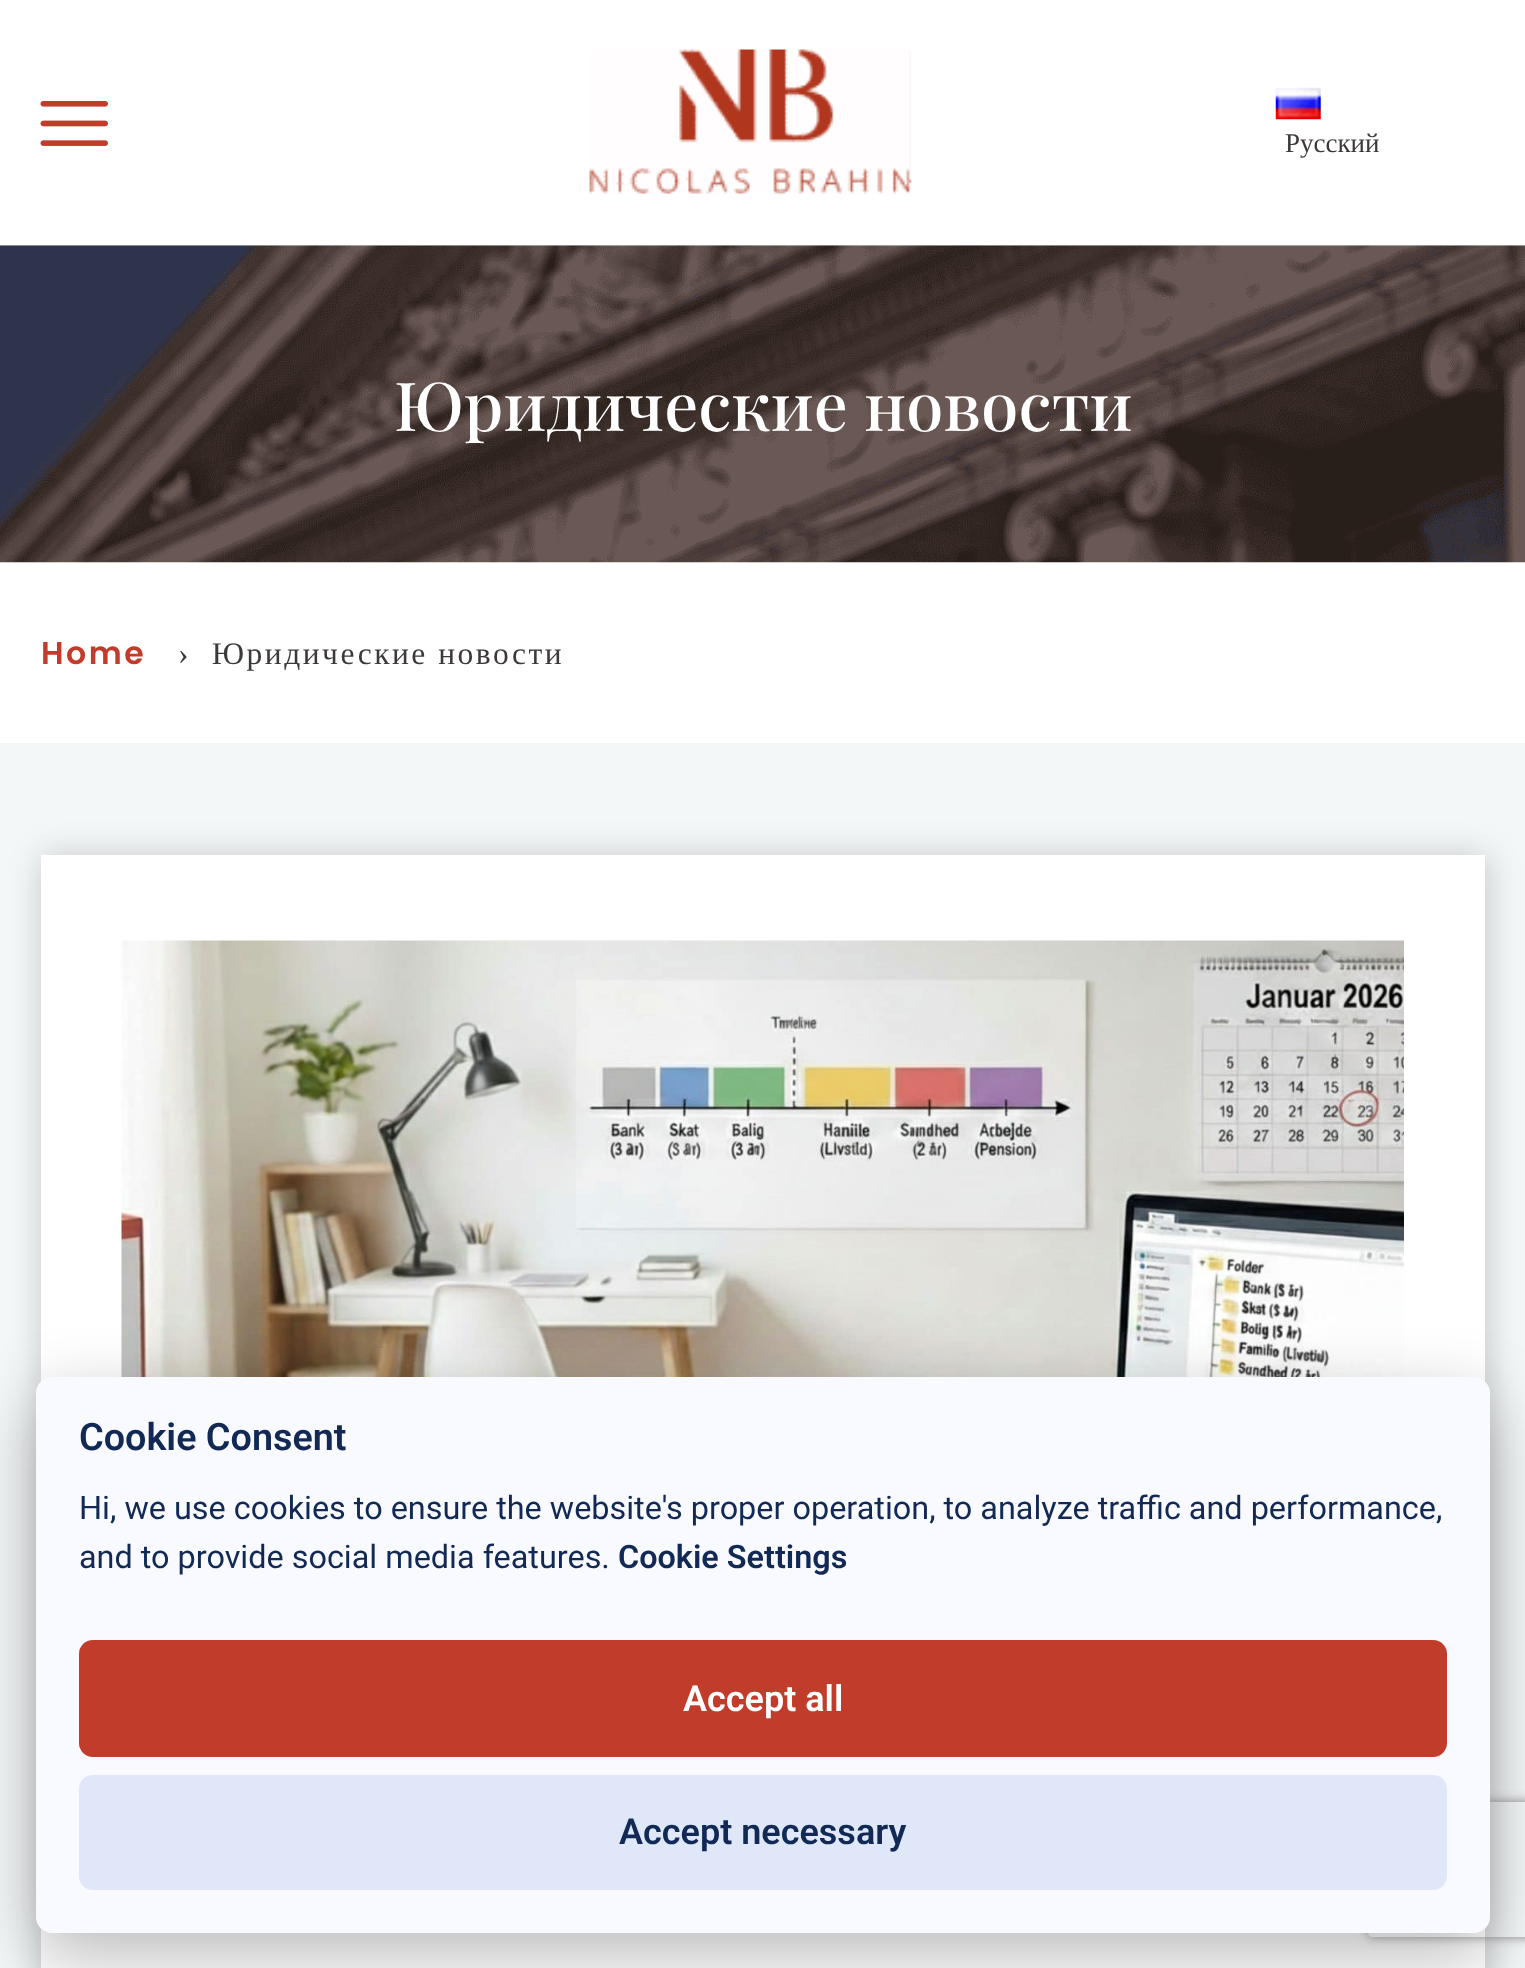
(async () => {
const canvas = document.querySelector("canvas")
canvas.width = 1525
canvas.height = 1968
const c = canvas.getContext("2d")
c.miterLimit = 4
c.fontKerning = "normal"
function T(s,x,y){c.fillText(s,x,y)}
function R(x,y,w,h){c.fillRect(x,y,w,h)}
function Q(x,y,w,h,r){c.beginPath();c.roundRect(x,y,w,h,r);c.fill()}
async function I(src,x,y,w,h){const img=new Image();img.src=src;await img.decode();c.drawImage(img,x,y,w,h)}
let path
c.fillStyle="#fff"
R(0,0,1525,1968)
await I("1.png",40,101,68,45)
await I("2.png",589,49,323,145)
await I("3.png",1275,87,46,33)
c.font="27px Liberation Serif"
c.fillStyle="#3d3939"
T("Русский",1285,152)
await I("4.png",0,245,1525,318)
c.font="500 67.5px Playfair Display"
c.fillStyle="#fff"
T("Юридические новости",394,431)
c.letterSpacing="2.5px"
c.font="600 31.5px Poppins"
c.fillStyle="#c13c2a"
T("Home",41,664)
c.font="31.5px Liberation Serif"
c.fillStyle="#3d3939"
T("›  Юридические новости",178,664)
c.fillStyle="#f4f7f8"
R(0,743,1525,1225)
c.fillStyle="#00000033"
c.filter="blur(17px)"
c.beginPath()
c.rect(43,857,1444,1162)
c.fill()
c.filter="none"
c.fillStyle="#fff"
R(41,855,1444,1113)
await I("5.png",121,940,1283,437)
c.fillStyle="#02020347"
c.filter="blur(34px)"
c.beginPath()
c.roundRect(36,1400,1454,555,16)
c.fill()
c.filter="none"
c.save()
path = new Path2D("M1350 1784h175v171h-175zm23 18h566c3 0 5 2 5 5v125c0 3-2 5-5 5h-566c-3 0-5-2-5-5v-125c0-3 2-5 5-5z")
c.clip(path,"evenodd")
c.fillStyle="#808080"
c.filter="blur(5.5px)"
c.beginPath()
c.roundRect(1368,1802,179,135,5)
c.fill()
c.filter="none"
c.restore()
c.fillStyle="#f9faff"
Q(36,1377,1454,556,16)
c.letterSpacing="0px"
c.font="600 37.75px Roboto"
c.fillStyle="#112954"
T("Cookie Consent",79,1450)
c.font="32.4px Roboto"
T("Hi, we use cookies to ensure the website's proper operation, to analyze traffic and performance,",79,1519)
T("and to provide social media features.",79,1568)
c.font="600 32.4px Roboto"
T("Cookie Settings",618,1568)
c.fillStyle="#c13c2a"
Q(79,1640,1368,117,14)
c.font="600 36px Roboto"
c.fillStyle="#fff"
T("Accept all",683,1711)
c.fillStyle="#dfe7f9"
Q(79,1775,1368,115,14)
c.fillStyle="#112954"
T("Accept necessary",619,1844)
})()
